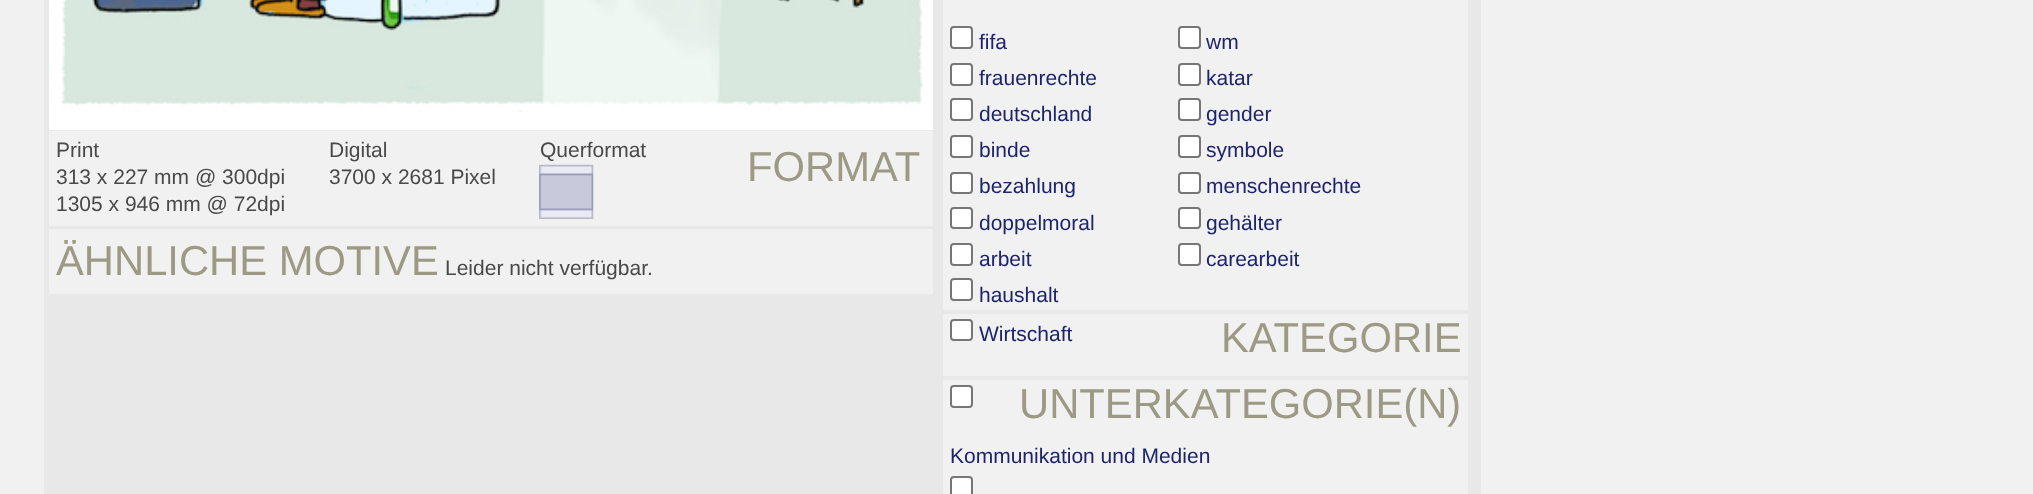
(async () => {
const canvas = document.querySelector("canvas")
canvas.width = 2033
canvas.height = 494
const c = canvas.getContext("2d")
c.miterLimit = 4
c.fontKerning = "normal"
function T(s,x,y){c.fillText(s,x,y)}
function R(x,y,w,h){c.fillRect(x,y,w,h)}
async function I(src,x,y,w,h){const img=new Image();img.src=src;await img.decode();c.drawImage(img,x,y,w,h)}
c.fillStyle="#f1f1f1"
R(0,0,2033,494)
c.fillStyle="#e8e8e8"
R(44,0,1437,494)
c.fillStyle="#fff"
R(49,0,884,130)
await I("1.png",61,0,862,113)
c.fillStyle="#f1f1f1"
R(49,131,884,95)
c.font="21px Liberation Sans"
c.fillStyle="#494949"
T("Print",56,157)
T("313 x 227 mm @ 300dpi",56,184)
T("1305 x 946 mm @ 72dpi",56,211)
T("Digital",329,157)
T("3700 x 2681 Pixel",329,184)
T("Querformat",540,157)
await I("2.png",539,164,55,55)
c.font="41.75px Liberation Sans"
c.fillStyle="#9c9984"
T("FORMAT",747,181)
c.fillStyle="#f1f1f1"
R(49,229,884,65)
c.fillStyle="#9c9984"
T("ÄHNLICHE MOTIVE",56,275)
c.font="21px Liberation Sans"
c.fillStyle="#494949"
T("Leider nicht verfügbar.",445,275)
c.fillStyle="#f1f1f1"
R(943,0,525,494)
c.fillStyle="#fff"
c.beginPath()
c.roundRect(951,27,21,21,3)
c.fill()
c.strokeStyle="#767676"
c.lineWidth=2
c.stroke()
c.fillStyle="#1d246c"
T("fifa",979,49)
c.fillStyle="#fff"
c.beginPath()
c.roundRect(1179,27,21,21,3)
c.fill()
c.stroke()
c.fillStyle="#1d246c"
T("wm",1206,49)
c.fillStyle="#fff"
c.beginPath()
c.roundRect(951,64,21,21,3)
c.fill()
c.stroke()
c.fillStyle="#1d246c"
T("frauenrechte",979,85)
c.fillStyle="#fff"
c.beginPath()
c.roundRect(1179,64,21,21,3)
c.fill()
c.stroke()
c.fillStyle="#1d246c"
T("katar",1206,85)
c.fillStyle="#fff"
c.beginPath()
c.roundRect(951,99,21,21,3)
c.fill()
c.stroke()
c.fillStyle="#1d246c"
T("deutschland",979,121)
c.fillStyle="#fff"
c.beginPath()
c.roundRect(1179,99,21,21,3)
c.fill()
c.stroke()
c.fillStyle="#1d246c"
T("gender",1206,121)
c.fillStyle="#fff"
c.beginPath()
c.roundRect(951,136,21,21,3)
c.fill()
c.stroke()
c.fillStyle="#1d246c"
T("binde",979,157)
c.fillStyle="#fff"
c.beginPath()
c.roundRect(1179,136,21,21,3)
c.fill()
c.stroke()
c.fillStyle="#1d246c"
T("symbole",1206,157)
c.fillStyle="#fff"
c.beginPath()
c.roundRect(951,173,21,20,3)
c.fill()
c.stroke()
c.fillStyle="#1d246c"
T("bezahlung",979,193)
c.fillStyle="#fff"
c.beginPath()
c.roundRect(1179,173,21,20,3)
c.fill()
c.stroke()
c.fillStyle="#1d246c"
T("menschenrechte",1206,193)
c.fillStyle="#fff"
c.beginPath()
c.roundRect(951,208,21,20,3)
c.fill()
c.stroke()
c.fillStyle="#1d246c"
T("doppelmoral",979,230)
c.fillStyle="#fff"
c.beginPath()
c.roundRect(1179,208,21,20,3)
c.fill()
c.stroke()
c.fillStyle="#1d246c"
T("gehälter",1206,230)
c.fillStyle="#fff"
c.beginPath()
c.roundRect(951,244,21,21,3)
c.fill()
c.stroke()
c.fillStyle="#1d246c"
T("arbeit",979,266)
c.fillStyle="#fff"
c.beginPath()
c.roundRect(1179,244,21,21,3)
c.fill()
c.stroke()
c.fillStyle="#1d246c"
T("carearbeit",1206,266)
c.fillStyle="#fff"
c.beginPath()
c.roundRect(951,279,21,21,3)
c.fill()
c.stroke()
c.fillStyle="#1d246c"
T("haushalt",979,302)
c.fillStyle="#e8e8e8"
R(943,310,525,4)
c.fillStyle="#fff"
c.beginPath()
c.roundRect(951,320,21,20,3)
c.fill()
c.stroke()
c.fillStyle="#1d246c"
T("Wirtschaft",979,341)
c.font="41.75px Liberation Sans"
c.fillStyle="#9c9984"
T("KATEGORIE",1221,352)
c.fillStyle="#e8e8e8"
R(943,376,525,4)
c.fillStyle="#fff"
c.beginPath()
c.roundRect(951,386,21,21,3)
c.fill()
c.stroke()
c.fillStyle="#9c9984"
T("UNTERKATEGORIE(N)",1019,418)
c.font="21px Liberation Sans"
c.fillStyle="#1d246c"
T("Kommunikation und Medien",950,463)
c.fillStyle="#fff"
c.beginPath()
c.roundRect(951,477,21,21,3)
c.fill()
c.stroke()
})()
